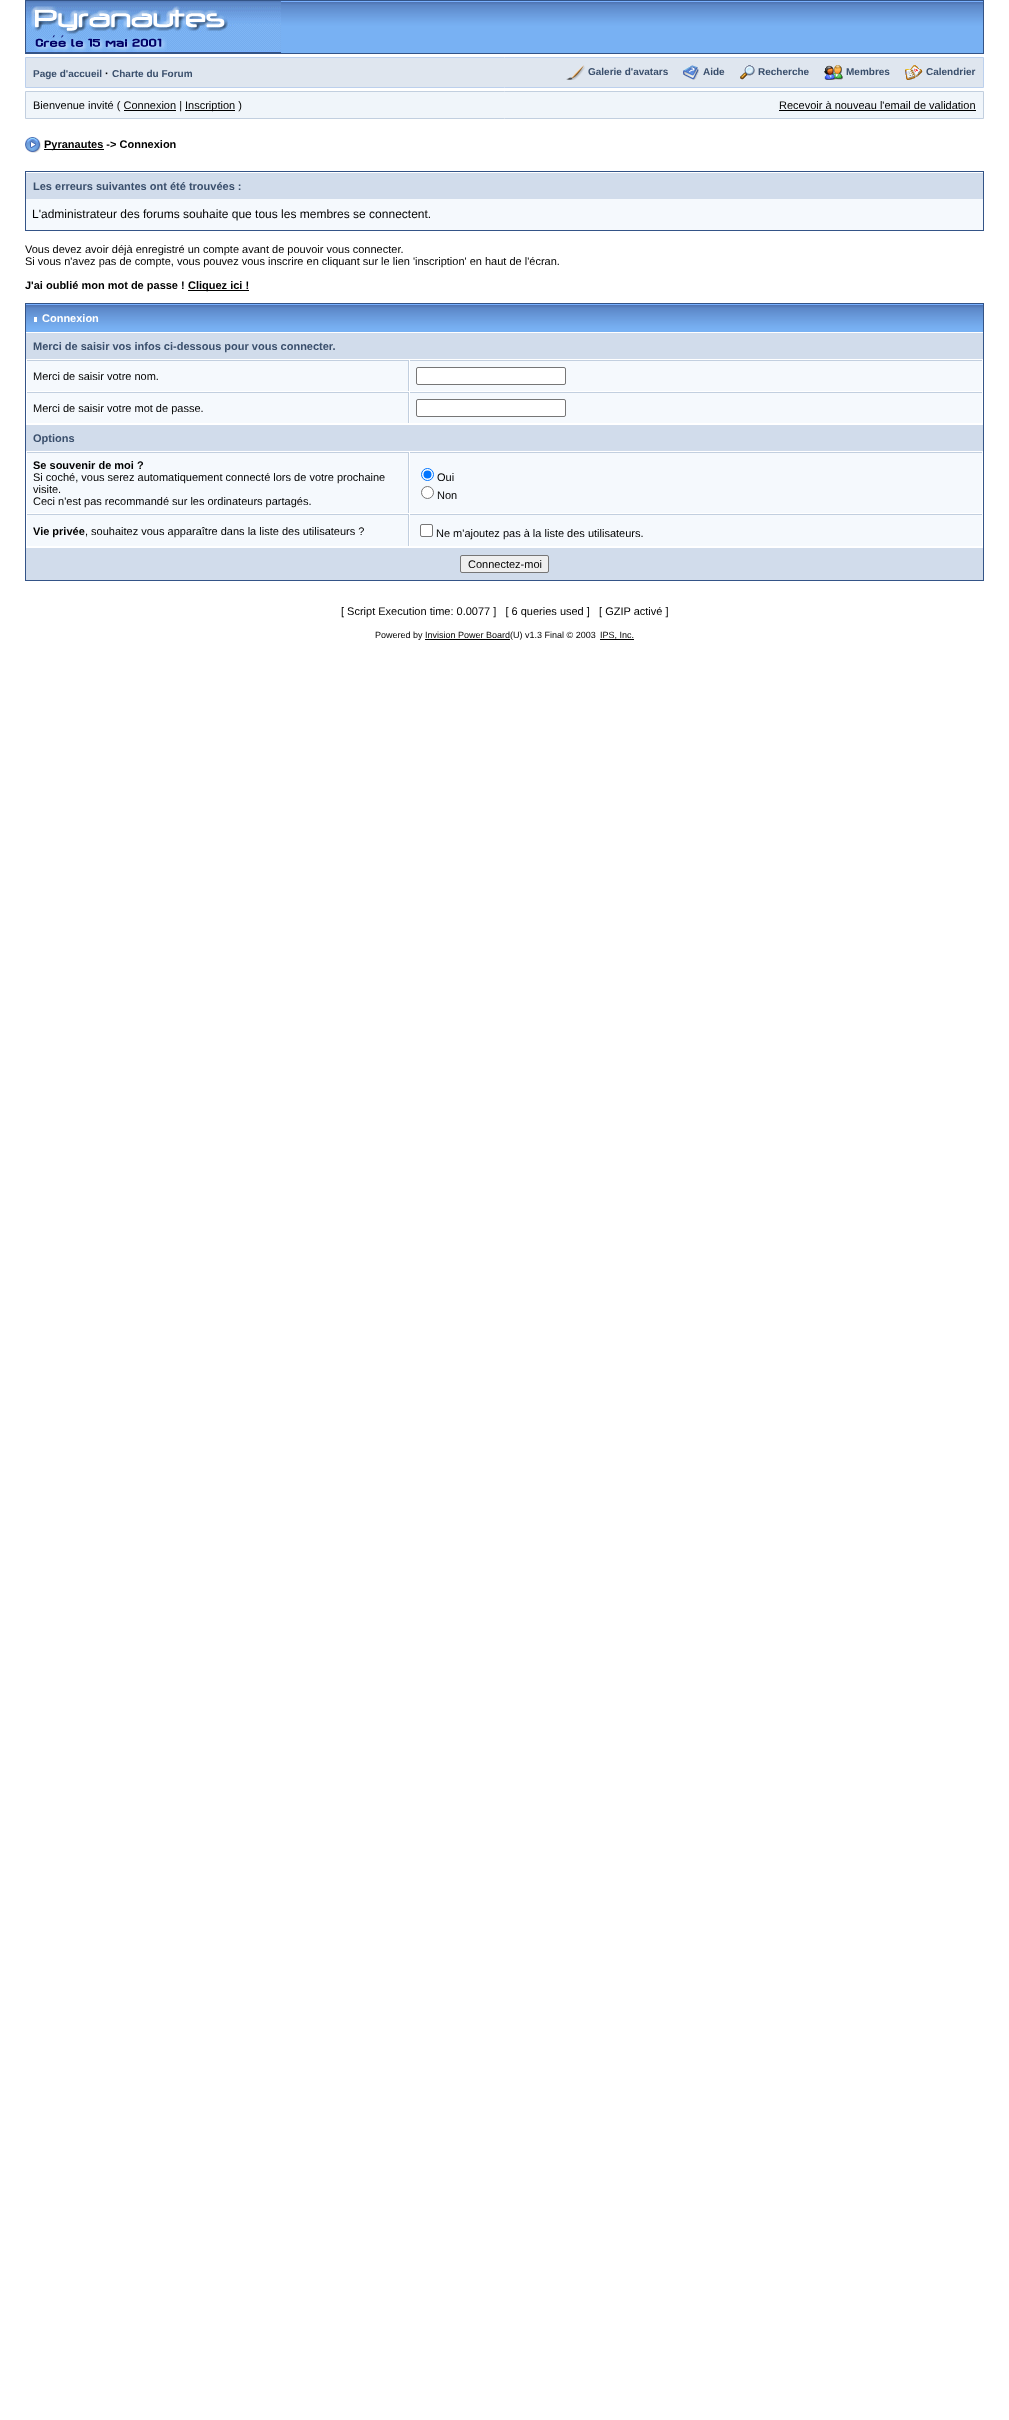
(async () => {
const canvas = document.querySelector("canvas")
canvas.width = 1009
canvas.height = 2420
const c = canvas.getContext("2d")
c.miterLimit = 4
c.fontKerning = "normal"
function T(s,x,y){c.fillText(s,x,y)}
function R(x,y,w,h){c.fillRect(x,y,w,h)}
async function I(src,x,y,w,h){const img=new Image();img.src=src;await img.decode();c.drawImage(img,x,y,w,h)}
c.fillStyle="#fff"
R(0,0,1009,2420)
await I("1.png",281,1,702,52)
c.strokeStyle="#345487"
c.strokeRect(25.5,.5,958,53)
await I("2.png",26,1,255,52)
c.fillStyle="#dfe6ef"
c.beginPath()
c.rect(25.5,57.5,958,30)
c.fill()
c.strokeStyle="#bcd0ed"
c.stroke()
c.font="bold 10px Liberation Sans"
c.fillStyle="#3a4f6c"
T("Page d'accueil",33,77)
c.font="bold 11px Liberation Sans"
c.fillStyle="#000"
T("·",105,77)
c.font="bold 10px Liberation Sans"
c.fillStyle="#3a4f6c"
T("Charte du Forum",112,77)
await I("3.png",566,65,19,15)
T("Galerie d'avatars",588,75)
await I("4.png",683,65,16,15)
T("Aide",703,75)
await I("5.png",740,65,15,15)
T("Recherche",758,75)
await I("6.png",824,65,19,15)
T("Membres",846,75)
await I("7.png",905,65,18,15)
T("Calendrier",926,75)
c.fillStyle="#f0f5fa"
c.beginPath()
c.rect(25.5,91.5,958,27)
c.fill()
c.strokeStyle="#c2cfdf"
c.stroke()
c.font="11px Liberation Sans"
c.fillStyle="#000"
T("Bienvenue invité ( Connexion |",33,109)
R(185,110,50,1)
T("Inscription )",185,109)
R(124,110,52,1)
T("Recevoir à nouveau l'email de validation",779,109)
R(779,110,197,1)
await I("8.png",25,137,16,16)
R(44,149,60,1)
c.font="bold 11px Liberation Sans"
T("Pyranautes -> Connexion",44,148)
c.strokeStyle="#345487"
c.strokeRect(25.5,171.5,958,59)
c.fillStyle="#d1dceb"
R(26,173,957,26)
c.fillStyle="#3a4f6c"
T("Les erreurs suivantes ont été trouvées :",33,190)
c.fillStyle="#f5f9fd"
R(26,199,957,31)
c.font="12px Liberation Sans"
c.fillStyle="#000"
T("L'administrateur des forums souhaite que tous les membres se connectent.",32,218)
c.font="11px Liberation Sans"
T("Vous devez avoir déjà enregistré un compte avant de pouvoir vous connecter.",25,253)
T("Si vous n'avez pas de compte, vous pouvez vous inscrire en cliquant sur le lien 'inscription' en haut de l'écran.",25,265)
c.font="bold 11px Liberation Sans"
T("J'ai oublié mon mot de passe !",25,289)
R(188,290,61,1)
T("Cliquez ici !",188,289)
c.strokeRect(25.5,303.5,958,277)
await I("9.png",26,304,957,28)
c.fillStyle="#fff"
R(34,317,3,5)
T("Connexion",42,322)
c.fillStyle="#d1dceb"
R(26,333,957,26)
c.fillStyle="#3a4f6c"
T("Merci de saisir vos infos ci-dessous pour vous connecter.",33,350)
c.fillStyle="#f5f9fd"
R(27,361,381,30)
c.fillStyle="#c2cfdf"
R(27,360,382,1)
R(408,360,1,31)
c.font="11px Liberation Sans"
c.fillStyle="#000"
T("Merci de saisir votre nom.",33,380)
c.fillStyle="#f5f9fd"
R(410,361,572,30)
c.fillStyle="#c2cfdf"
R(410,360,572,1)
c.fillStyle="#fff"
c.beginPath()
c.roundRect(416.5,367.5,149,17,1.5)
c.fill()
c.strokeStyle="#767676"
c.stroke()
c.fillStyle="#f5f9fd"
R(27,393,381,30)
c.fillStyle="#c2cfdf"
R(27,392,382,1)
R(408,392,1,31)
c.fillStyle="#000"
T("Merci de saisir votre mot de passe.",33,412)
c.fillStyle="#f5f9fd"
R(410,393,572,30)
c.fillStyle="#c2cfdf"
R(410,392,572,1)
c.fillStyle="#fff"
c.beginPath()
c.roundRect(416.5,399.5,149,17,1.5)
c.fill()
c.stroke()
c.fillStyle="#d1dceb"
R(26,425,957,26)
c.font="bold 11px Liberation Sans"
c.fillStyle="#3a4f6c"
T("Options",33,442)
c.fillStyle="#f5f9fd"
R(27,453,381,60)
c.fillStyle="#c2cfdf"
R(27,452,382,1)
R(408,452,1,61)
c.fillStyle="#000"
T("Se souvenir de moi ?",33,469)
c.font="11px Liberation Sans"
T("Si coché, vous serez automatiquement connecté lors de votre prochaine",33,481)
T("visite.",33,493)
T("Ceci n'est pas recommandé sur les ordinateurs partagés.",33,505)
c.fillStyle="#f5f9fd"
R(410,453,572,60)
c.fillStyle="#c2cfdf"
R(410,452,572,1)
c.fillStyle="#fff"
c.beginPath()
c.arc(427.5,474.5,6,0,7)
c.fill()
c.strokeStyle="#0075ff"
c.stroke()
c.fillStyle="#0075ff"
c.beginPath()
c.arc(427.5,474.5,4,0,7)
c.fill()
c.fillStyle="#000"
T("Oui",437,481)
c.fillStyle="#fff"
c.beginPath()
c.arc(427.5,492.5,6,0,7)
c.fill()
c.strokeStyle="#767676"
c.stroke()
c.fillStyle="#000"
T("Non",437,499)
c.fillStyle="#f5f9fd"
R(27,515,381,31)
c.fillStyle="#c2cfdf"
R(27,514,382,1)
R(408,514,1,32)
c.font="bold 11px Liberation Sans"
c.fillStyle="#000"
T("Vie privée",33,535)
c.font="11px Liberation Sans"
T(", souhaitez vous apparaître dans la liste des utilisateurs ?",85,535)
c.fillStyle="#f5f9fd"
R(410,515,572,31)
c.fillStyle="#c2cfdf"
R(410,514,572,1)
c.fillStyle="#fff"
c.beginPath()
c.roundRect(420.5,524.5,12,12,1.5)
c.fill()
c.stroke()
c.fillStyle="#000"
T("Ne m'ajoutez pas à la liste des utilisateurs.",436,537)
c.fillStyle="#d1dceb"
R(26,548,957,32)
c.fillStyle="#efefef"
c.beginPath()
c.roundRect(460.5,555.5,88,17,1.5)
c.fill()
c.stroke()
c.fillStyle="#000"
T("Connectez-moi",468,568)
T("[ Script Execution time: 0.0077 ]   [ 6 queries used ]   [ GZIP activé ]",341,615)
c.font="9px Liberation Sans"
T("Powered by Invision Power Board(U) v1.3 Final © 2003",375,638)
R(600,639,34,1)
T("IPS, Inc.",600,638)
R(425,639,85,1)
})()
